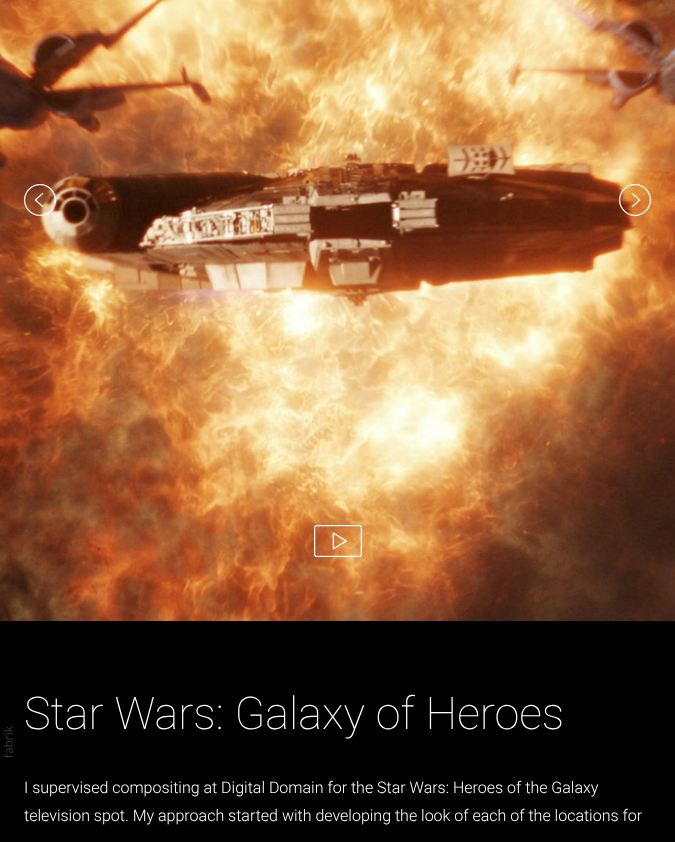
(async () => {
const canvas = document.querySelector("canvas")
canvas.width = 675
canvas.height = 842
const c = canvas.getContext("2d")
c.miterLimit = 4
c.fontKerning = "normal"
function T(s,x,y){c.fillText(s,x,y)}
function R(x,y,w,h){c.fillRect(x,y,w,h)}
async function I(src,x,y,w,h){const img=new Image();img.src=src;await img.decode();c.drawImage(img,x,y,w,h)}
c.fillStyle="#000"
R(0,0,675,842)
await I("1.png",3,726,10,32)
await I("2.png",0,0,675,621)
await I("3.png",314,525,48,32)
await I("4.png",24,184,32,32)
await I("5.png",619,184,32,32)
c.font="100 45px Roboto"
c.fillStyle="#fff"
T("Star Wars: Galaxy of Heroes",24,729)
c.font="300 16px Roboto"
T("I supervised compositing at Digital Domain for the Star Wars: Heroes of the Galaxy",24,793)
T("television spot. My approach started with developing the look of each of the locations for",24,821)
})()
